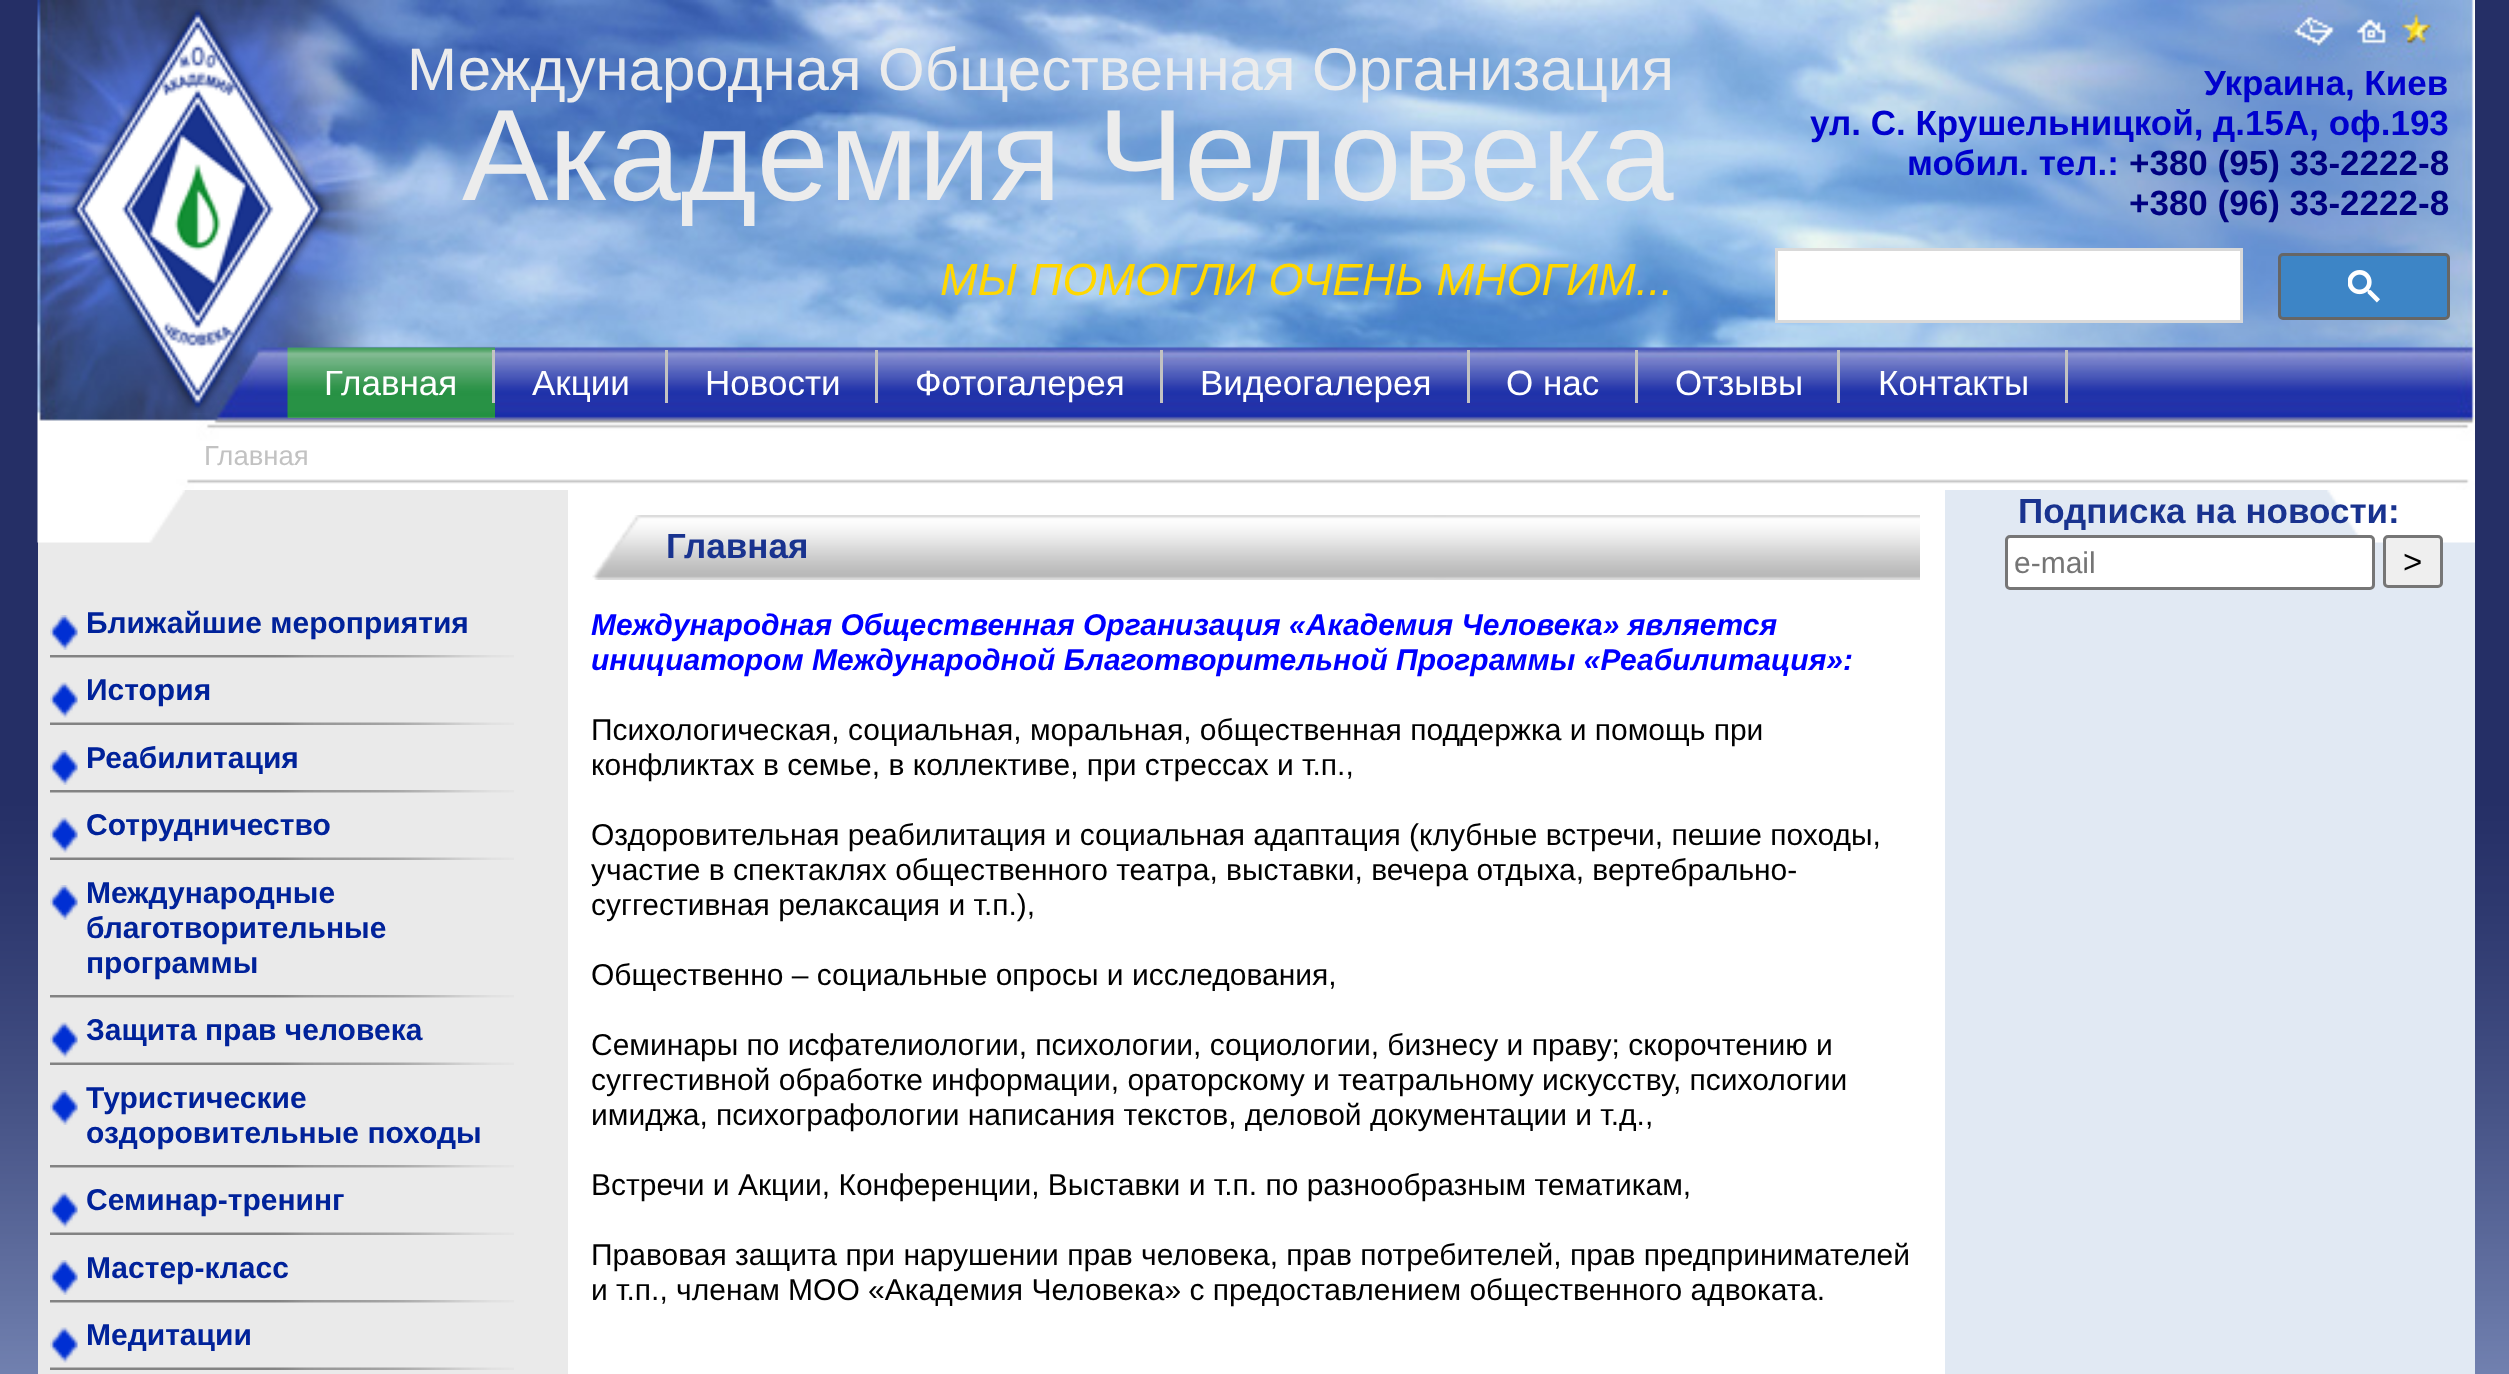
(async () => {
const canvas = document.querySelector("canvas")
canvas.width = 2509
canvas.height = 1374
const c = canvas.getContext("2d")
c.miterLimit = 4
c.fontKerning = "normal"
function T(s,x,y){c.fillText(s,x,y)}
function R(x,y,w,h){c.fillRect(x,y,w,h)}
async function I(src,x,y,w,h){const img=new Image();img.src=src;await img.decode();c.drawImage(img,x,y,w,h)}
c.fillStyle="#fff"
R(0,0,2509,1374)
await I("1.png",0,0,2509,1374)
c.fillStyle="#eaeaea"
R(38,490,530,884)
await I("2.png",37,0,2438,490)
await I("3.png",66,5,263,408)
c.font="60px Liberation Sans"
c.fillStyle="#ececec"
T("Международная Общественная Организация",407,90)
c.font="130px Liberation Sans"
T("Академия Человека",462,200)
c.font="italic 45px Liberation Sans"
c.fillStyle="#ffd700"
T("МЫ ПОМОГЛИ ОЧЕНЬ МНОГИМ...",940,295)
c.font="bold 35px Liberation Sans"
c.fillStyle="#0000cd"
T("Украина, Киев",2204,95)
T("ул. С. Крушельницкой, д.15А, оф.193",1810,135)
T("мобил. тел.:",1907,175)
c.fillStyle="#000080"
T("+380 (95) 33-2222-8",2129,175)
T("+380 (96) 33-2222-8",2129,215)
c.fillStyle="#fff"
c.beginPath()
c.rect(1776.5,249.5,465,72)
c.fill()
c.strokeStyle="#d9d9d9"
c.lineWidth=3
c.stroke()
c.fillStyle="#3d85c6"
c.beginPath()
c.roundRect(2279.5,254.5,169,64,3.5)
c.fill()
c.strokeStyle="#666"
c.stroke()
await I("4.png",2348,270,32,33)
c.fillStyle="#459e5d"
R(288,417,207,1)
await I("5.png",287,347,208,71)
c.font="35px Liberation Sans"
c.fillStyle="#fff"
T("Главная",324,395)
c.fillStyle="#c2c2c2"
R(492,350,3,53)
c.fillStyle="#fff"
T("Акции",532,395)
c.fillStyle="#c2c2c2"
R(665,350,3,53)
c.fillStyle="#fff"
T("Новости",705,395)
c.fillStyle="#c2c2c2"
R(875,350,3,53)
c.fillStyle="#fff"
T("Фотогалерея",915,395)
c.fillStyle="#c2c2c2"
R(1160,350,3,53)
c.fillStyle="#fff"
T("Видеогалерея",1200,395)
c.fillStyle="#c2c2c2"
R(1467,350,3,53)
c.fillStyle="#fff"
T("О нас",1506,395)
c.fillStyle="#c2c2c2"
R(1635,350,3,53)
c.fillStyle="#fff"
T("Отзывы",1675,395)
c.fillStyle="#c2c2c2"
R(1837,350,3,53)
c.fillStyle="#fff"
T("Контакты",1878,395)
c.fillStyle="#c2c2c2"
R(2065,350,3,53)
c.font="27.5px Liberation Sans"
T("Главная",204,465)
await I("6.png",37,490,148,53)
await I("7.png",50,615,28,35)
c.font="bold 30px Liberation Sans"
c.fillStyle="#00229a"
T("Ближайшие мероприятия",86,633)
await I("8.png",50,655,464,3)
await I("9.png",50,682,28,36)
T("История",86,700)
await I("10.png",50,722,464,3)
await I("7.png",50,750,28,35)
T("Реабилитация",86,768)
await I("8.png",50,790,464,3)
await I("9.png",50,817,28,36)
T("Сотрудничество",86,835)
await I("10.png",50,857,464,3)
await I("7.png",50,885,28,35)
T("Международные",86,903)
T("благотворительные",86,938)
T("программы",86,973)
await I("8.png",50,995,464,3)
await I("11.png",50,1022,28,36)
T("Защита прав человека",86,1040)
await I("10.png",50,1062,464,3)
await I("7.png",50,1090,28,35)
T("Туристические",86,1108)
T("оздоровительные походы",86,1143)
await I("8.png",50,1165,464,3)
await I("9.png",50,1192,28,36)
T("Семинар-тренинг",86,1210)
await I("10.png",50,1232,464,3)
await I("7.png",50,1260,28,35)
T("Мастер-класс",86,1278)
await I("8.png",50,1300,464,3)
await I("9.png",50,1327,28,36)
T("Медитации",86,1345)
await I("10.png",50,1367,464,3)
c.fillStyle="#fff"
R(568,490,1377,884)
await I("12.png",592,515,1328,65)
c.font="bold 35px Liberation Sans"
c.fillStyle="#19338f"
T("Главная",666,558)
c.font="italic bold 30px Liberation Sans"
c.fillStyle="#00f"
T("Международная Общественная Организация «Академия Человека» является",591,635)
T("инициатором Международной Благотворительной Программы «Реабилитация»:",591,670)
c.font="30px Liberation Sans"
c.fillStyle="#000"
T("Психологическая, социальная, моральная, общественная поддержка и помощь при",591,740)
T("конфликтах в семье, в коллективе, при стрессах и т.п.,",591,775)
T("Оздоровительная реабилитация и социальная адаптация (клубные встречи, пешие походы,",591,845)
T("участие в спектаклях общественного театра, выставки, вечера отдыха, вертебрально-",591,880)
T("суггестивная релаксация и т.п.),",591,915)
T("Общественно – социальные опросы и исследования,",591,985)
T("Семинары по исфателиологии, психологии, социологии, бизнесу и праву; скорочтению и",591,1055)
T("суггестивной обработке информации, ораторскому и театральному искусству, психологии",591,1090)
T("имиджа, психографологии написания текстов, деловой документации и т.д.,",591,1125)
T("Встречи и Акции, Конференции, Выставки и т.п. по разнообразным тематикам,",591,1195)
T("Правовая защита при нарушении прав человека, прав потребителей, прав предпринимателей",591,1265)
T("и т.п., членам МОО «Академия Человека» с предоставлением общественного адвоката.",591,1300)
c.fillStyle="#e1e9f3"
R(1945,490,530,884)
await I("13.png",2327,490,148,53)
c.font="bold 35px Liberation Sans"
c.fillStyle="#19338f"
T("Подписка на новости:",2018,523)
c.fillStyle="#fff"
c.beginPath()
c.roundRect(2006.5,536.5,367,52,3.5)
c.fill()
c.strokeStyle="#767676"
c.stroke()
c.font="30px Liberation Sans"
c.fillStyle="#757575"
T("e-mail",2014,573)
c.fillStyle="#efefef"
c.beginPath()
c.roundRect(2384.5,536.5,57,50,3.5)
c.fill()
c.stroke()
c.font="33px Liberation Sans"
c.fillStyle="#000"
T(">",2403,573)
})()
